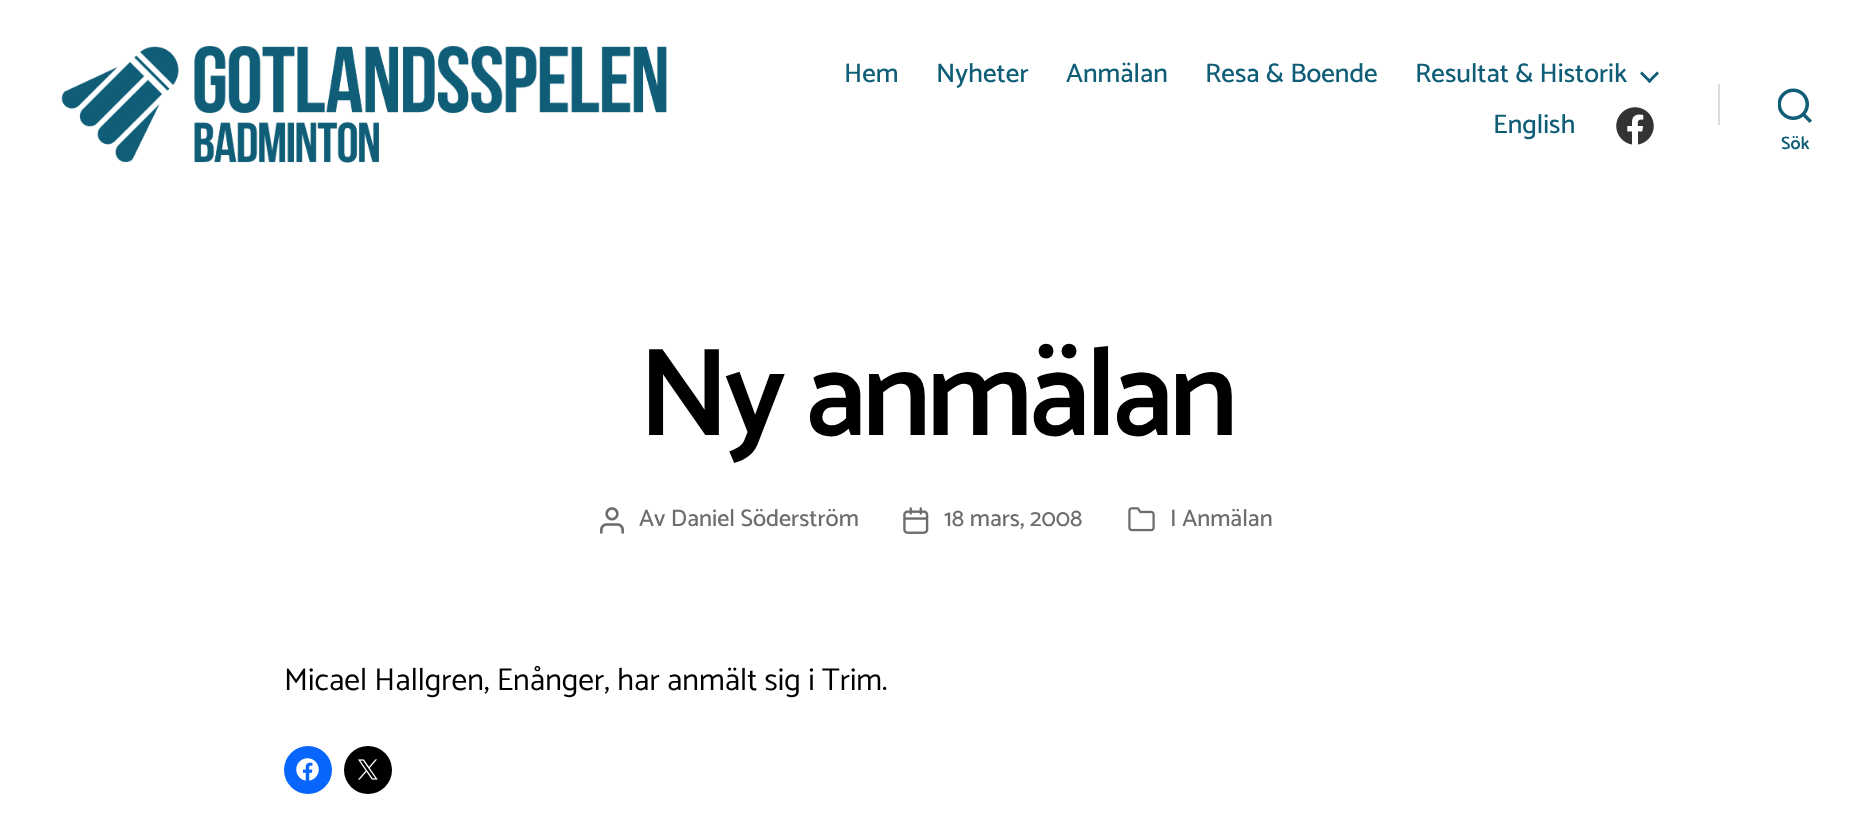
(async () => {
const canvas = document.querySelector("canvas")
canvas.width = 1872
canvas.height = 827
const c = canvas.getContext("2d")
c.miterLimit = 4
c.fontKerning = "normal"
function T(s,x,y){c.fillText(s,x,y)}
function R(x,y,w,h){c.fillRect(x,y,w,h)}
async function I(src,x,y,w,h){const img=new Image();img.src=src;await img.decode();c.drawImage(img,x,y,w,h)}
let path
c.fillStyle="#fff"
R(0,0,1872,827)
await I("1.png",61,45,606,118)
c.font="500 27px Catamaran"
c.fillStyle="#0f5d77"
T("Hem",844,82)
T("Nyheter",936,82)
T("Anmälan",1066,82)
T("Resa & Boende",1205,82)
T("Resultat & Historik",1415,82)
path = new Path2D("M1640 73.5l2-2l9.5 9.5l-2 2z")
c.fill(path)
path = new Path2D("M1647.5 81l9.5-9.5l2 2l-9.5 9.5z")
c.fill(path)
T("English",1493,133)
await I("2.png",1616,107,38,38)
c.fillStyle="#dbdbdb"
R(1718,84,2,41)
await I("3.png",1778,88,34,35)
c.font="600 18px Catamaran"
c.fillStyle="#0f5d77"
T("Sök",1781,149)
c.letterSpacing="-5.25px"
c.font="600 126px Catamaran"
c.fillStyle="#000"
T("Ny anmälan",638,435)
await I("4.png",600,507,24,27)
c.letterSpacing="0px"
c.font="500 24px Catamaran"
c.fillStyle="#6d6d6d"
T("Av Daniel Söderström",639,526)
await I("5.png",903,507,26,27)
T("18 mars, 2008",944,526)
await I("6.png",1128,507,27,25)
T("I Anmälan",1170,526)
c.font="31.5px Catamaran"
c.fillStyle="#000"
T("Micael Hallgren, Enånger, har anmält sig i Trim.",284,690)
c.fillStyle="#0866ff"
c.beginPath()
c.arc(308,770,24,0,7)
c.fill()
await I("7.png",296,758,23,23)
c.fillStyle="#000"
c.beginPath()
c.arc(368,770,24,0,7)
c.fill()
await I("8.png",358,759,20,21)
})()
